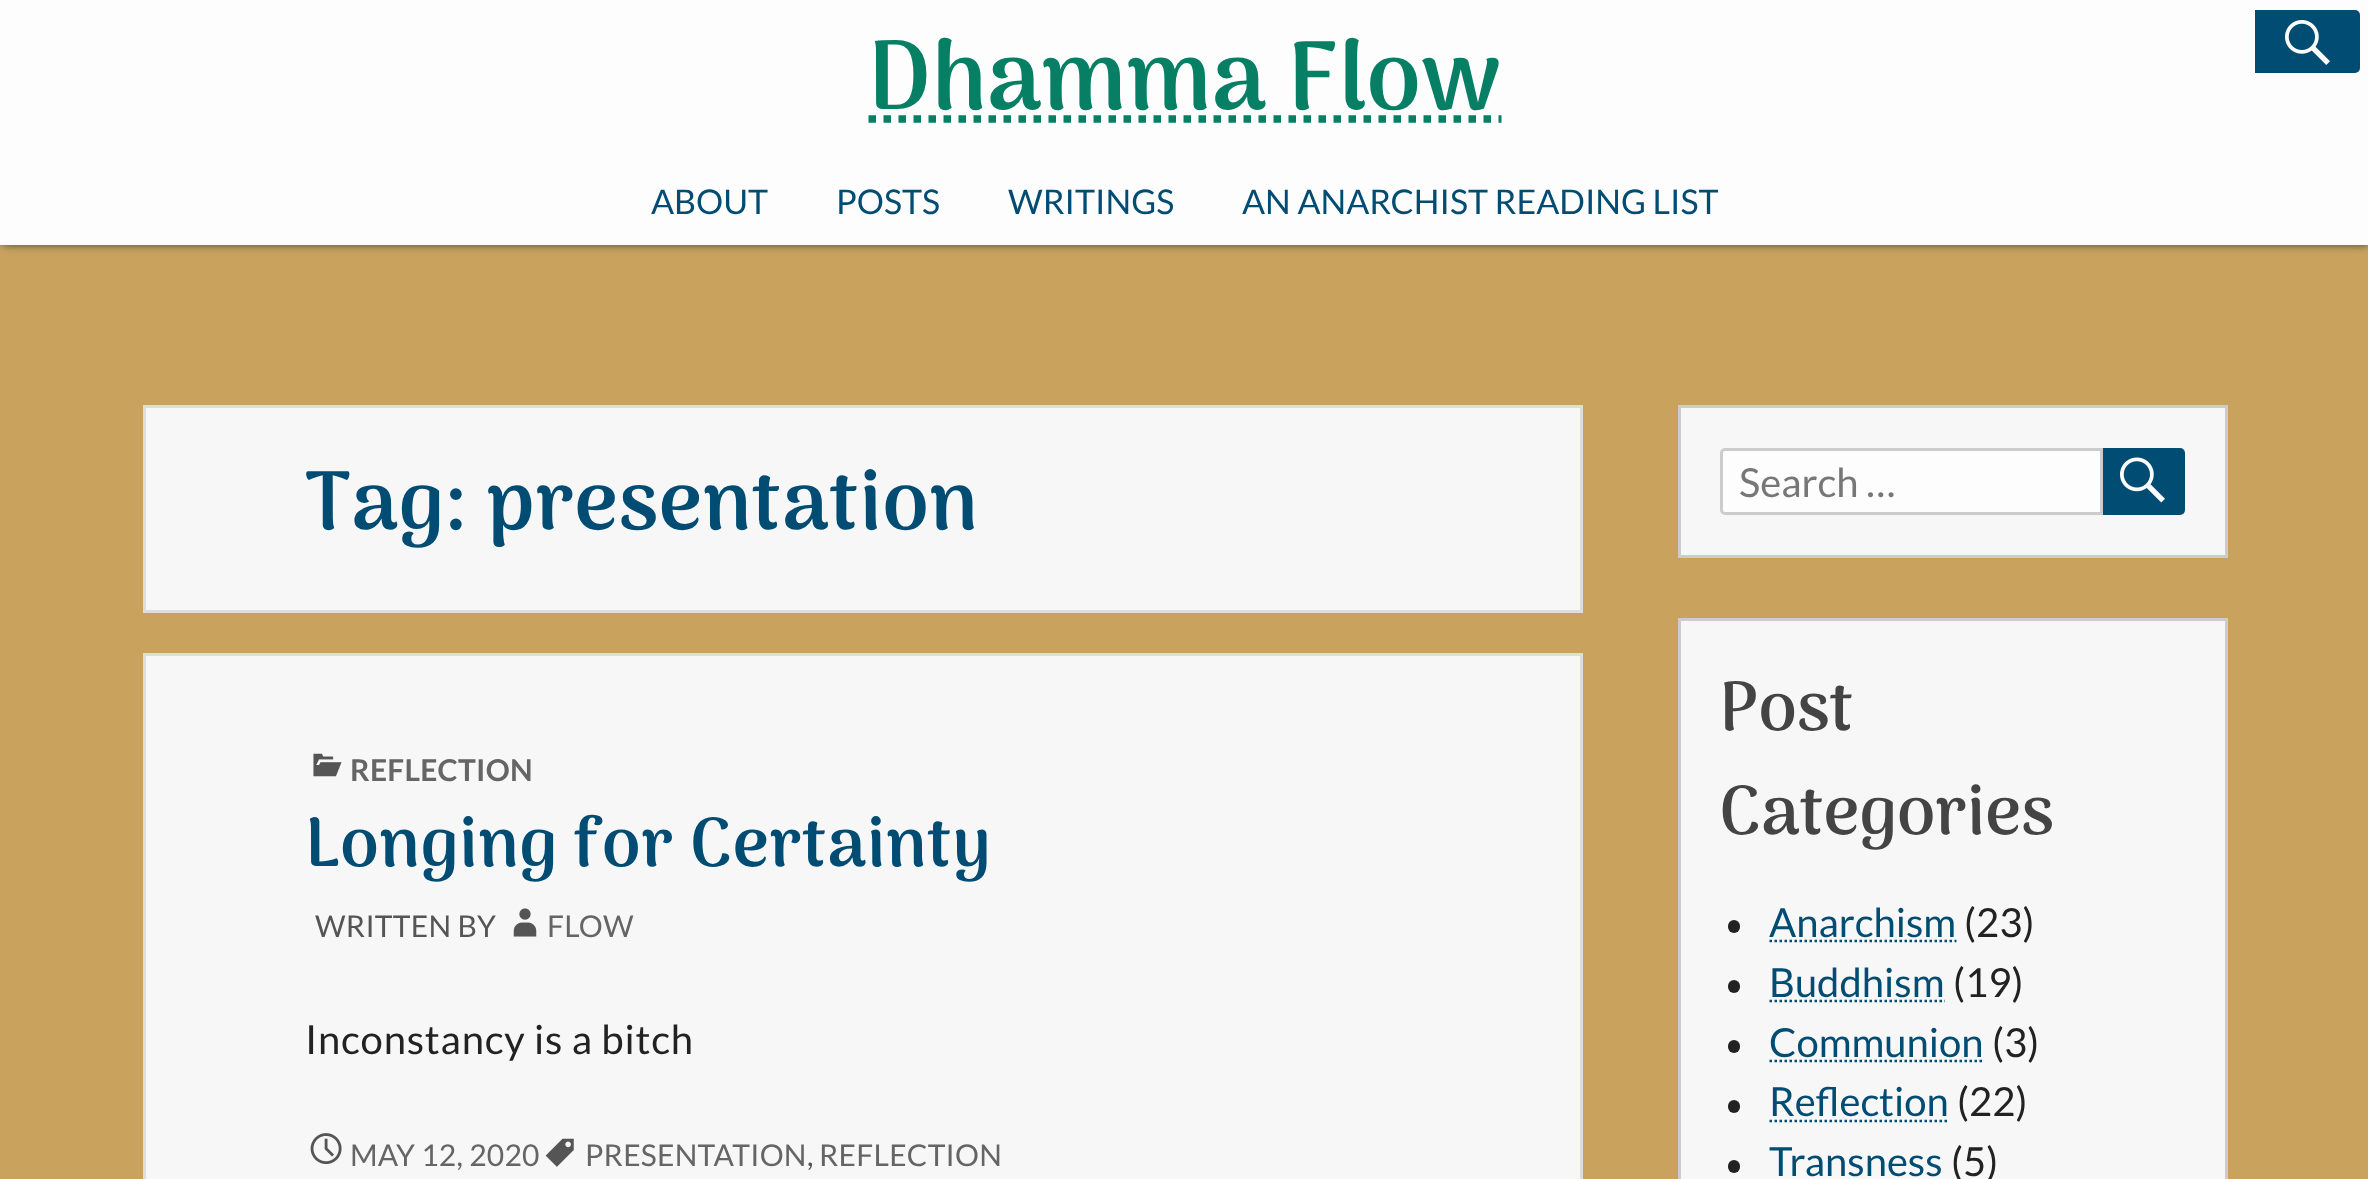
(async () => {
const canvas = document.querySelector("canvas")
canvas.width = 2368
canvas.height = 1179
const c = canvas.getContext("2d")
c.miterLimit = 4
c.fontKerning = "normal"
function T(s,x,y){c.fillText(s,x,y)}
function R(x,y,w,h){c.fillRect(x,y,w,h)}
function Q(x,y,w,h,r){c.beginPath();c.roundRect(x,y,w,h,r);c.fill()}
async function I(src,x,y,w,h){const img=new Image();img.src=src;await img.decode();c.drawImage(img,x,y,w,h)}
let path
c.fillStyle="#c9a25e"
R(0,0,2368,1179)
c.fillStyle="#3c4b44"
c.filter="blur(4px)"
c.beginPath()
c.rect(3,5,2365,240)
c.fill()
c.filter="none"
c.fillStyle="#fdfdfd"
R(0,0,2368,245)
c.font="800 97.5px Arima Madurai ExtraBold"
c.fillStyle="#067f64"
T("Dhamma Flow",868,109)
path = new Path2D("M868.5 119h633")
c.strokeStyle="#067f64"
c.lineWidth=7.5
c.setLineDash([7.5,7.5])
c.stroke(path)
c.fillStyle="#004c73"
c.beginPath()
c.roundRect(2255,10,105,63,[0,5,5,0])
c.fill()
await I("1.png",2285,20,45,45)
c.font="34px Lato"
T("ABOUT",651,214)
T("POSTS",836,214)
T("WRITINGS",1008,214)
T("AN ANARCHIST READING LIST",1242,214)
c.fillStyle="#f7f7f7"
c.beginPath()
c.rect(144.5,406.5,1437,205)
c.fill()
c.strokeStyle="#ddd"
c.lineWidth=3
c.setLineDash([])
c.stroke()
c.letterSpacing="0.8px"
c.font="800 83px Arima Madurai ExtraBold"
c.fillStyle="#004c73"
T("Tag: presentation",305,529)
c.fillStyle="#f7f7f7"
c.beginPath()
c.rect(144.5,654.5,1437,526)
c.fill()
c.stroke()
await I("2.png",313,753,29,24)
c.letterSpacing="0.25px"
c.font="bold 30px Lato"
c.fillStyle="#656565"
T("REFLECTION",350,781)
c.letterSpacing="0.8px"
c.font="800 69.1px Arima Madurai ExtraBold"
c.fillStyle="#004c73"
T("Longing for Certainty",305,866)
c.letterSpacing="0.25px"
c.font="30px Lato"
c.fillStyle="#555"
T("WRITTEN BY",315,937)
await I("3.png",513,908,24,29)
c.fillStyle="#656565"
T("FLOW",547,937)
c.letterSpacing="0.8px"
c.font="40px Lato"
c.fillStyle="#222"
T("Inconstancy is a bitch",305,1054)
await I("4.png",310,1133,32,32)
c.letterSpacing="0.25px"
c.font="30px Lato"
c.fillStyle="#656565"
T("MAY 12, 2020",350,1166)
await I("5.png",545,1138,29,29)
T("PRESENTATION",585,1166)
c.fillStyle="#555"
T(",",807,1166)
c.fillStyle="#656565"
T("REFLECTION",819,1166)
c.fillStyle="#f7f7f7"
c.beginPath()
c.rect(1679.5,406.5,547,150)
c.fill()
c.strokeStyle="#ccc"
c.stroke()
c.fillStyle="#fdfdfd"
c.beginPath()
c.roundRect(1721.5,449.5,380,64,[3.5,0,0,3.5])
c.fill()
c.stroke()
c.letterSpacing="0px"
c.font="40px Lato"
c.fillStyle="#777"
T("Search …",1739,497)
c.fillStyle="#004c73"
c.beginPath()
c.roundRect(2103,448,82,67,[0,5,5,0])
c.fill()
await I("6.png",2120,457,45,46)
c.fillStyle="#f7f7f7"
c.beginPath()
c.rect(1679.5,619.5,547,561)
c.fill()
c.stroke()
c.font="bold 69.1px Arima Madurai"
c.fillStyle="#444"
T("Post",1719,730)
T("Categories",1719,834)
c.fillStyle="#222"
Q(1728,920,12,13,6)
c.font="40px Lato"
c.fillStyle="#004c73"
T("Anarchism",1769,937)
path = new Path2D("M1769.5 941h187")
c.strokeStyle="#004c73"
c.lineWidth=2.5
c.setLineDash([2.5,2.5])
c.stroke(path)
c.fillStyle="#222"
T("(23)",1964,937)
Q(1728,980,12,13,6)
c.fillStyle="#004c73"
T("Buddhism",1769,997)
path = new Path2D("M1769.5 1001h175.5")
c.stroke(path)
c.fillStyle="#222"
T("(19)",1953,997)
Q(1728,1040,12,13,6)
c.fillStyle="#004c73"
T("Communion",1769,1057)
path = new Path2D("M1769.5 1061h214.5")
c.stroke(path)
c.fillStyle="#222"
T("(3)",1992,1057)
Q(1728,1100,12,13,6)
c.fillStyle="#004c73"
T("Reflection",1769,1116)
path = new Path2D("M1769.5 1121h179.5")
c.stroke(path)
c.fillStyle="#222"
T("(22)",1957,1116)
Q(1728,1160,12,13,6)
c.fillStyle="#004c73"
T("Transness",1769,1176)
c.fillStyle="#222"
T("(5)",1951,1176)
})()
